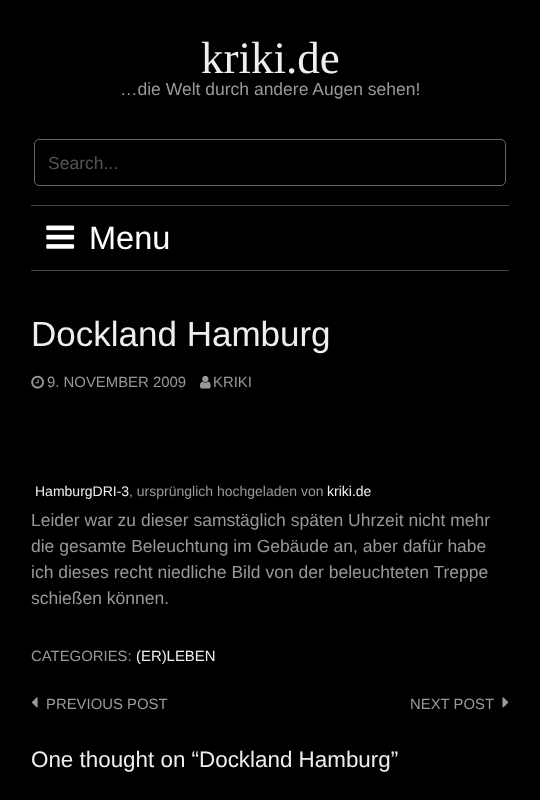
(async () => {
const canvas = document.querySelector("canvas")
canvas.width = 540
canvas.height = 800
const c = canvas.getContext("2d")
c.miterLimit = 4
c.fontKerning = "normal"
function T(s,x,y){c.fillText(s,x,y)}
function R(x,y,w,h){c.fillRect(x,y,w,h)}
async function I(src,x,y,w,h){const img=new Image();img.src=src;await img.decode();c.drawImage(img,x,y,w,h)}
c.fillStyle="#000"
R(0,0,540,800)
c.font="45px Liberation Serif"
c.fillStyle="#eee"
T("kriki.de",201,73)
c.font="17.5px Liberation Sans"
c.fillStyle="#999"
T("…die Welt durch andere Augen sehen!",120,95)
c.beginPath()
c.roundRect(34.5,139.5,471,46,4.5)
c.strokeStyle="#666"
c.stroke()
c.fillStyle="#555"
T("Search...",48,169)
c.fillStyle="#444"
R(31,205,478,1)
R(31,270,478,1)
await I("1.png",46,225,29,24)
c.font="32.5px Liberation Sans"
c.fillStyle="#fff"
T("Menu",89,249)
c.font="35px Liberation Sans"
c.fillStyle="#eee"
T("Dockland Hamburg",31,346)
await I("2.png",31,375,13,14)
c.font="14.9px Liberation Sans"
c.fillStyle="#999"
T("9. NOVEMBER 2009",47,387)
await I("3.png",200,375,11,14)
T("KRIKI",213,387)
c.font="14px Liberation Sans"
c.fillStyle="#eee"
T("HamburgDRI-3",35,496)
c.fillStyle="#999"
T(", ursprünglich hochgeladen von",129,496)
c.fillStyle="#eee"
T("kriki.de",327,496)
c.font="17.5px Liberation Sans"
c.fillStyle="#999"
T("Leider war zu dieser samstäglich späten Uhrzeit nicht mehr",31,526)
T("die gesamte Beleuchtung im Gebäude an, aber dafür habe",31,552)
T("ich dieses recht niedliche Bild von der beleuchteten Treppe",31,578)
T("schießen können.",31,604)
c.font="14.9px Liberation Sans"
T("CATEGORIES:",31,661)
c.fillStyle="#eee"
T("(ER)LEBEN",136,661)
await I("4.png",31,697,7,11)
c.fillStyle="#999"
T("PREVIOUS POST",46,709)
T("NEXT POST",410,709)
await I("5.png",502,697,7,11)
c.font="22.4px Liberation Sans"
c.fillStyle="#eee"
T("One thought on “Dockland Hamburg”",31,767)
})()
